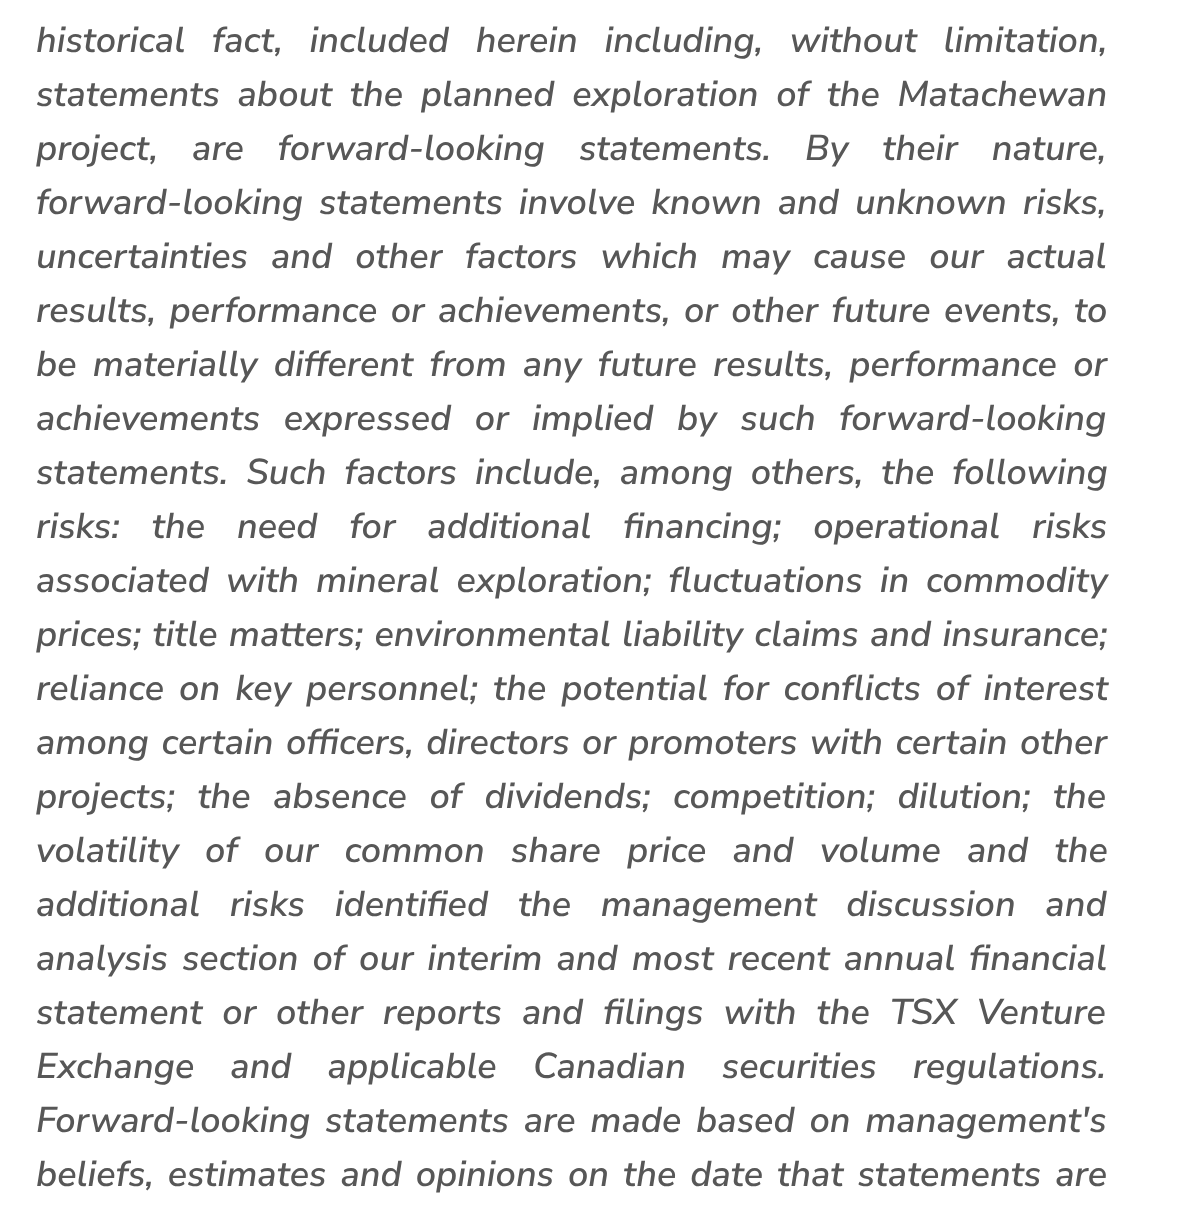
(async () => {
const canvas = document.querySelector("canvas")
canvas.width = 1195
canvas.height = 1219
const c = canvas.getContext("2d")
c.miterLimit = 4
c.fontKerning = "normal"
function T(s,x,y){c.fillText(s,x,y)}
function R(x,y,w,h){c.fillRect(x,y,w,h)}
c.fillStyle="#fff"
R(0,0,1195,1219)
c.wordSpacing="17.25px"
c.font="italic 200 36px Nunito Sans"
c.fillStyle="#575757"
T("historical fact, included herein including, without limitation,",36,52)
c.wordSpacing="8.25px"
T("statements about the planned exploration of the Matachewan",36,106)
c.wordSpacing="24.5px"
T("project, are forward-looking statements. By their nature,",36,160)
c.wordSpacing="6.5px"
T("forward-looking statements involve known and unknown risks,",36,214)
c.wordSpacing="13.5px"
T("uncertainties and other factors which may cause our actual",36,268)
c.wordSpacing="4px"
T("results, performance or achievements, or other future events, to",36,322)
c.wordSpacing="6.75px"
T("be materially different from any future results, performance or",36,376)
c.wordSpacing="14px"
T("achievements expressed or implied by such forward-looking",36,430)
c.wordSpacing="8.5px"
T("statements. Such factors include, among others, the following",36,484)
c.wordSpacing="22.5px"
T("risks: the need for additional financing; operational risks",36,538)
c.wordSpacing="7.5px"
T("associated with mineral exploration; fluctuations in commodity",36,592)
c.wordSpacing="1.75px"
T("prices; title matters; environmental liability claims and insurance;",36,646)
c.wordSpacing="5.5px"
T("reliance on key personnel; the potential for conflicts of interest",36,700)
c.wordSpacing="3px"
T("among certain officers, directors or promoters with certain other",36,754)
c.wordSpacing="13px"
T("projects; the absence of dividends; competition; dilution; the",36,808)
c.wordSpacing="16.75px"
T("volatility of our common share price and volume and the",36,862)
c.wordSpacing="20.25px"
T("additional risks identified the management discussion and",36,916)
c.wordSpacing="4.5px"
T("analysis section of our interim and most recent annual financial",36,970)
c.wordSpacing="10.5px"
T("statement or other reports and filings with the TSX Venture",36,1024)
c.wordSpacing="26.5px"
T("Exchange and applicable Canadian securities regulations.",36,1078)
c.wordSpacing="5.25px"
T("Forward-looking statements are made based on management's",36,1132)
c.wordSpacing="4.5px"
T("beliefs, estimates and opinions on the date that statements are",36,1186)
})()
